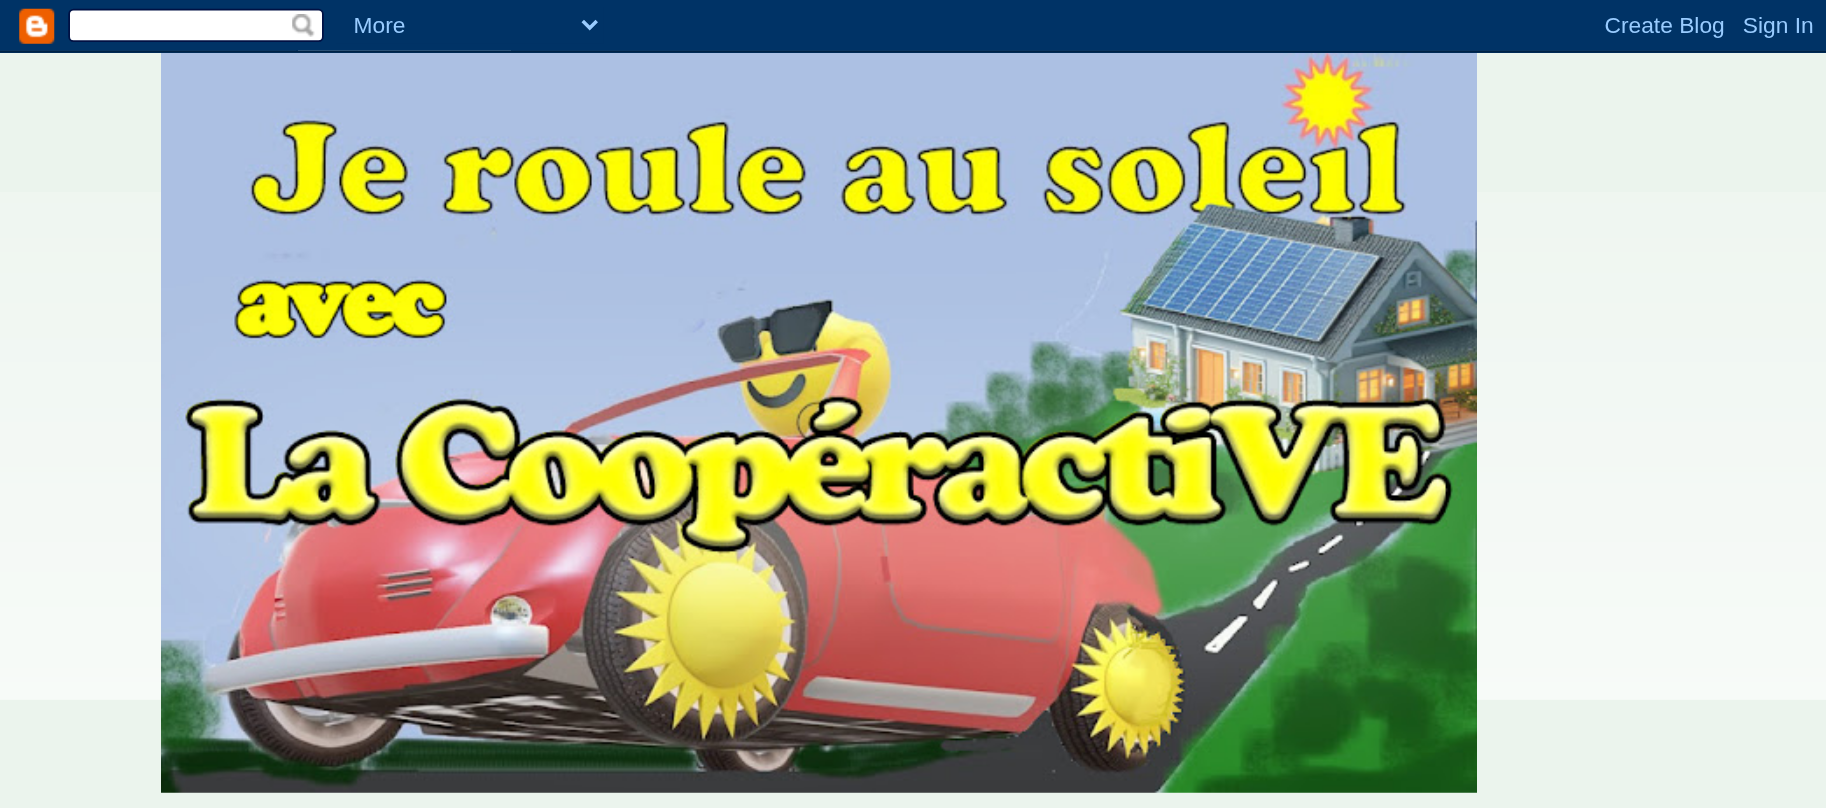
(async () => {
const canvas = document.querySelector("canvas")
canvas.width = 1826
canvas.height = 808
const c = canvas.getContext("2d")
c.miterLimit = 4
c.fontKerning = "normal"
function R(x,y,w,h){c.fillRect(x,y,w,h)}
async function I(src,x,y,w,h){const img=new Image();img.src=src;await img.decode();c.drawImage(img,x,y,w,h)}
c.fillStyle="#ebf4ed"
R(0,0,1826,808)
await I("1.png",0,0,1826,53)
await I("3.png",0,192,1826,508)
await I("2.png",161,53,1316,740)
})()
